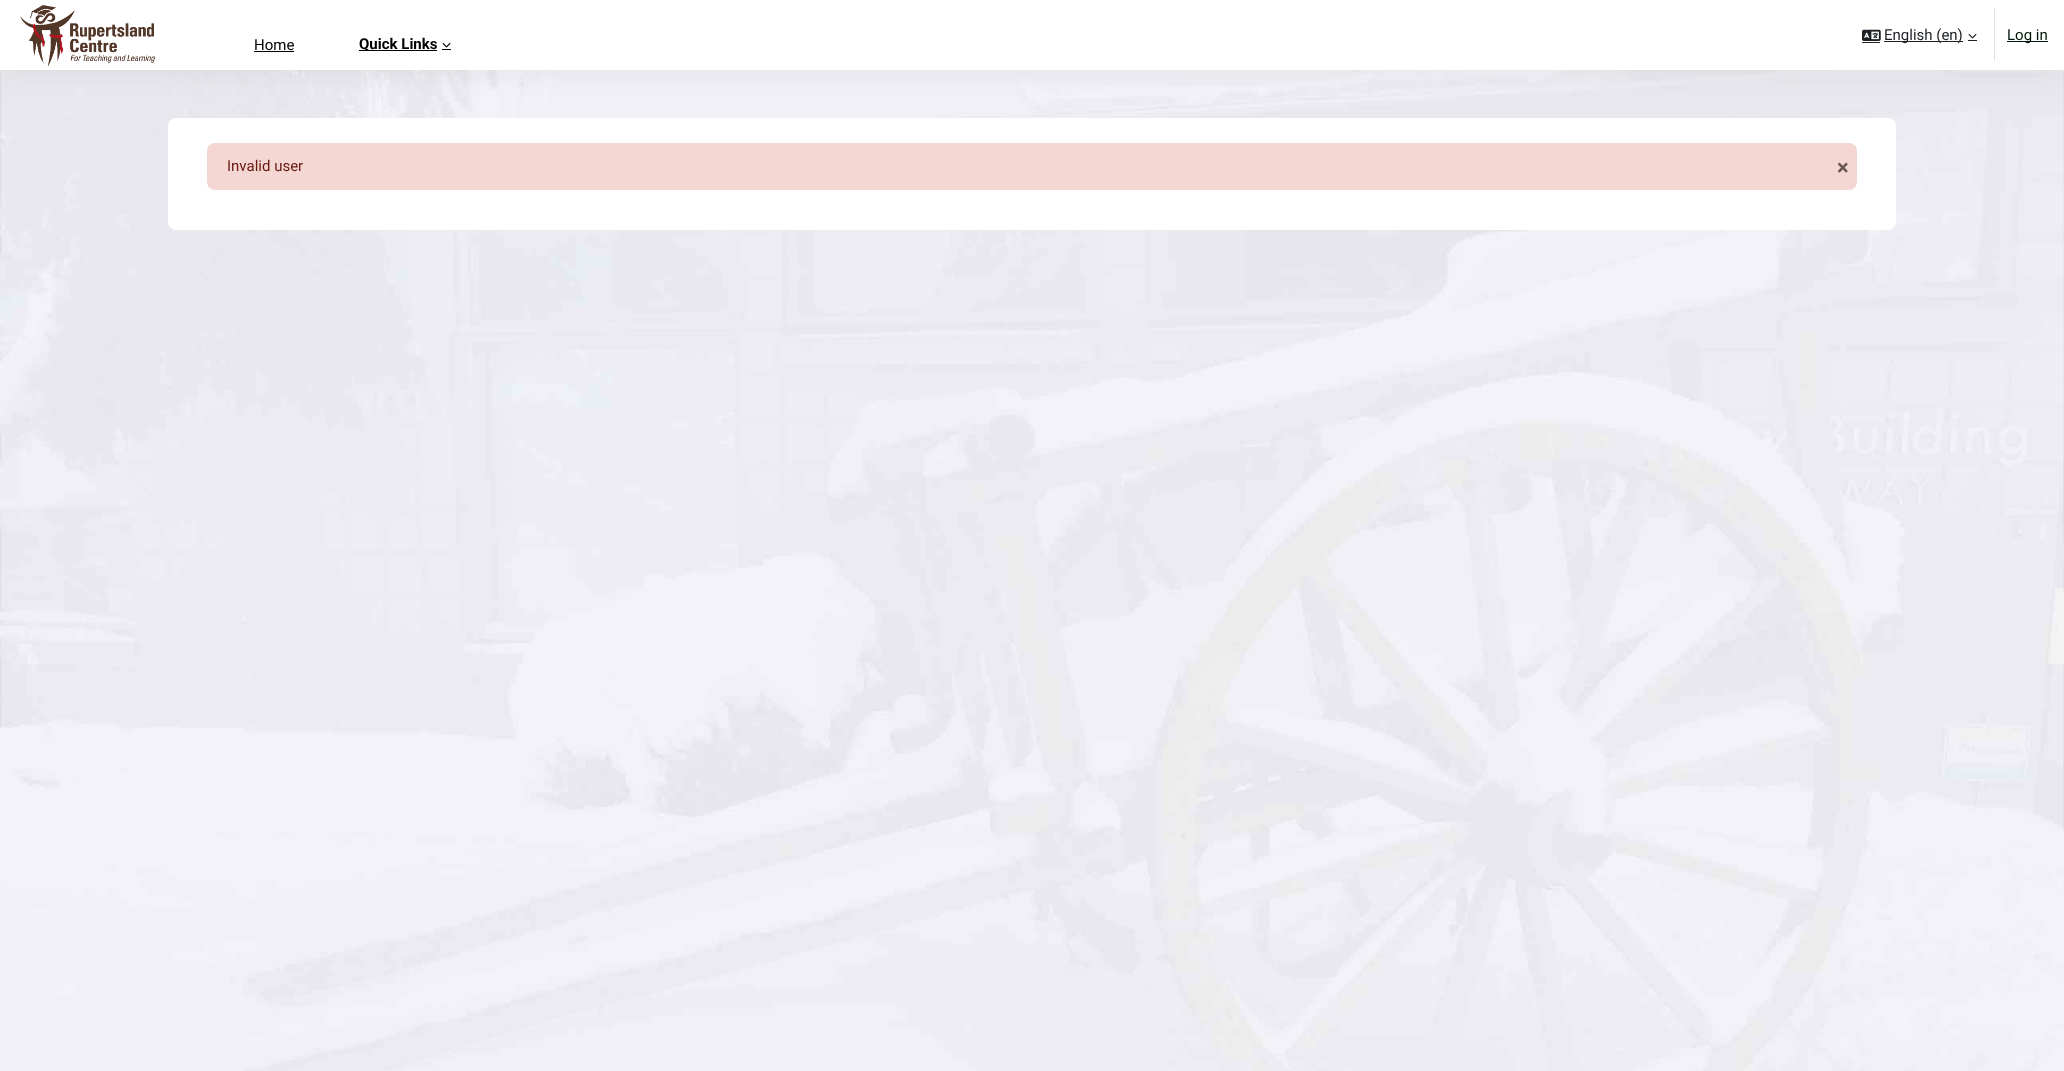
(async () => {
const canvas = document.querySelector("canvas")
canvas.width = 2064
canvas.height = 1071
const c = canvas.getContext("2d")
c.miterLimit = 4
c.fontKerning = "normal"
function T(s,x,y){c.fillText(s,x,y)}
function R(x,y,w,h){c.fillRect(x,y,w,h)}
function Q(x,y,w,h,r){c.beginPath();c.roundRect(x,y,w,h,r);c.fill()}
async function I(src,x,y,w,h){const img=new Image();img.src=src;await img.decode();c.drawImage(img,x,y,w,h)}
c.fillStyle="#fff"
R(0,0,2064,1071)
await I("1.png",0,70,2064,1001)
c.fillStyle="#8c98a421"
c.filter="blur(12px)"
c.beginPath()
c.rect(0,6,2064,70)
c.fill()
c.filter="none"
c.fillStyle="#fff"
R(0,0,2064,70)
await I("2.png",20,5,135,62)
c.font="15px Roboto"
c.fillStyle="#000"
T("Home",254,50)
R(254,51,40,1)
R(359,50,78,1)
c.font="bold 15px Roboto"
T("Quick Links",359,49)
R(442,49,9,1)
await I("3.png",442,43,9,5)
await I("4.png",1862,29,19,12)
c.fillStyle="#1d2125"
R(1862,42,18,1)
R(1884,41,79,1)
c.font="15px Roboto"
T("English (en)",1884,40)
R(1968,40,9,1)
await I("5.png",1968,34,9,5)
c.fillStyle="#dee2e6"
R(1994,9,1,52)
c.fillStyle="#00190a"
R(2007,41,41,1)
T("Log in",2007,40)
c.fillStyle="#fff"
Q(168,118,1728,112,8)
c.fillStyle="#f4d6d2"
Q(207,143,1650,47,8)
c.fillStyle="#691911"
T("Invalid user",227,171)
c.font="bold 22px Roboto"
c.fillStyle="#695755"
T("×",1837,175)
})()
